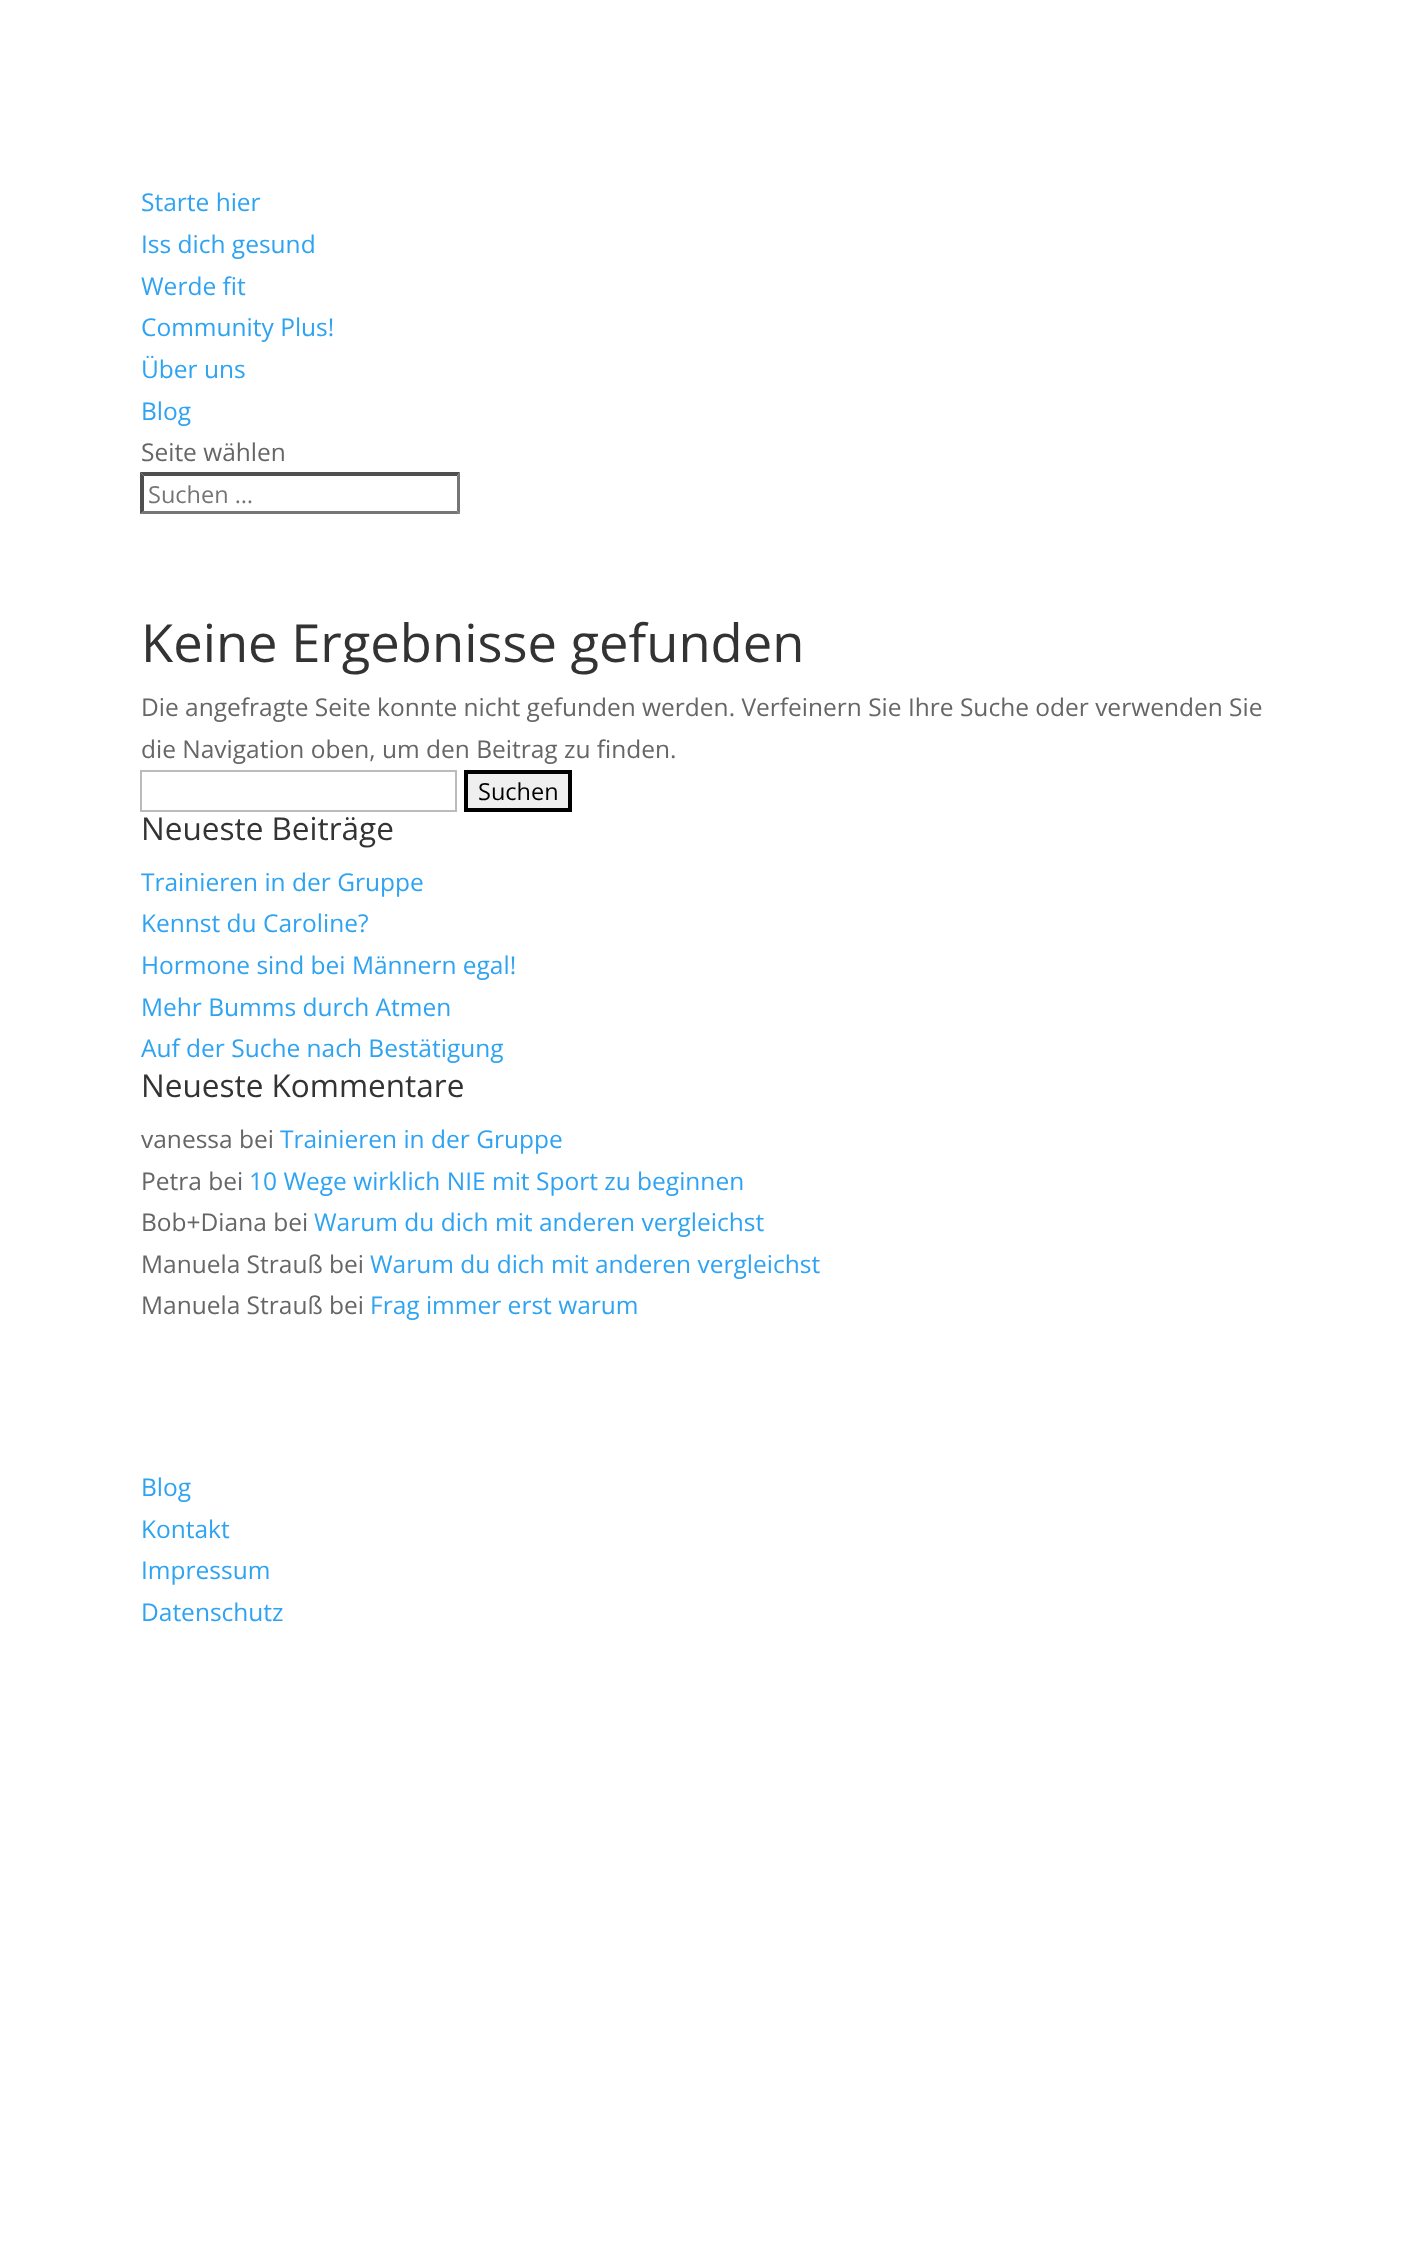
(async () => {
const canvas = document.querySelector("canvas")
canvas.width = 1406
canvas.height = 2261
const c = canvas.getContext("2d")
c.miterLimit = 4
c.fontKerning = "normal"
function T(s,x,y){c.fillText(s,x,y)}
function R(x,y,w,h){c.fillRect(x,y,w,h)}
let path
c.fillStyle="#fff"
R(0,0,1406,2261)
c.font="24.5px Open Sans"
c.fillStyle="#2ea3f2"
T("Starte hier",141,211)
T("Iss dich gesund",141,253)
T("Werde fit",141,295)
T("Community Plus!",141,336)
T("Über uns",141,378)
T("Blog",141,420)
c.fillStyle="#666"
T("Seite wählen",141,461)
c.fillStyle="#4f4f4f"
path = new Path2D("M140 472h320l-3 4h-313z")
c.fill(path)
c.fillStyle="#767676"
path = new Path2D("M460 472v42l-3-3v-35z")
c.fill(path)
path = new Path2D("M460 514h-320l4-3h313z")
c.fill(path)
c.fillStyle="#4f4f4f"
path = new Path2D("M140 514v-42l4 4v35z")
c.fill(path)
c.font="23.5px Open Sans"
c.fillStyle="#757575"
T("Suchen …",148,503)
c.font="52.5px Open Sans"
c.fillStyle="#333"
T("Keine Ergebnisse gefunden",141,662)
c.font="24.5px Open Sans"
c.fillStyle="#666"
T("Die angefragte Seite konnte nicht gefunden werden. Verfeinern Sie Ihre Suche oder verwenden Sie",141,716)
T("die Navigation oben, um den Beitrag zu finden.",141,758)
c.strokeStyle="#bbb"
c.lineWidth=2
c.strokeRect(141,771,315,40)
c.fillStyle="#efefef"
c.beginPath()
c.rect(466,772,104,38)
c.fill()
c.strokeStyle="#000"
c.lineWidth=4
c.stroke()
c.font="23.5px Open Sans"
c.fillStyle="#000"
T("Suchen",478,800)
c.font="31.5px Open Sans"
c.fillStyle="#333"
T("Neueste Beiträge",141,840)
c.font="24.5px Open Sans"
c.fillStyle="#2ea3f2"
T("Trainieren in der Gruppe",141,891)
T("Kennst du Caroline?",141,932)
T("Hormone sind bei Männern egal!",141,974)
T("Mehr Bumms durch Atmen",141,1016)
T("Auf der Suche nach Bestätigung",141,1057)
c.font="31.5px Open Sans"
c.fillStyle="#333"
T("Neueste Kommentare",141,1097)
c.font="24.5px Open Sans"
c.fillStyle="#666"
T("vanessa bei",141,1148)
c.fillStyle="#2ea3f2"
T("Trainieren in der Gruppe",280,1148)
c.fillStyle="#666"
T("Petra bei",141,1190)
c.fillStyle="#2ea3f2"
T("10 Wege wirklich NIE mit Sport zu beginnen",249,1190)
c.fillStyle="#666"
T("Bob+Diana bei",141,1231)
c.fillStyle="#2ea3f2"
T("Warum du dich mit anderen vergleichst",314,1231)
c.fillStyle="#666"
T("Manuela Strauß bei",141,1273)
c.fillStyle="#2ea3f2"
T("Warum du dich mit anderen vergleichst",370,1273)
c.fillStyle="#666"
T("Manuela Strauß bei",141,1314)
c.fillStyle="#2ea3f2"
T("Frag immer erst warum",370,1314)
T("Blog",141,1496)
T("Kontakt",141,1538)
T("Impressum",141,1579)
T("Datenschutz",141,1621)
})()
